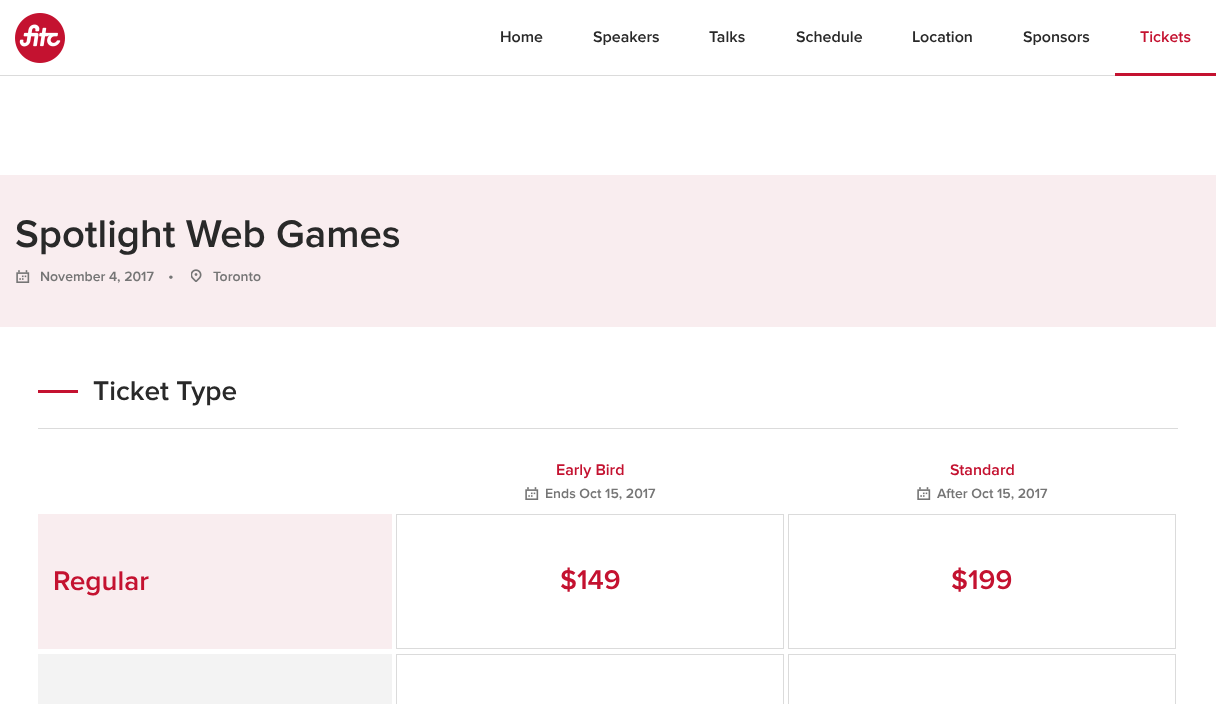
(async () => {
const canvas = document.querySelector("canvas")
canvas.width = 1216
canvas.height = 704
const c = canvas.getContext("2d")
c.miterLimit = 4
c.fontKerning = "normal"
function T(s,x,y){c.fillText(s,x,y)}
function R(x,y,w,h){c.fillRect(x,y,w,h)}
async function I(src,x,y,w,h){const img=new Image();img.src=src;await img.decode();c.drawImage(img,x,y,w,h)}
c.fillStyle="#fff"
R(0,0,1216,704)
c.fillStyle="#dbdbdb"
R(0,75,1115,1)
await I("1.png",15,13,50,50)
c.font="600 16px Proxima Nova"
c.fillStyle="#292929"
T("Home",500,42)
T("Speakers",593,42)
T("Talks",709,42)
T("Schedule",796,42)
T("Location",912,42)
T("Sponsors",1023,42)
c.fillStyle="#c41230"
T("Tickets",1140,42)
R(1115,73,101,3)
c.fillStyle="#f9edef"
R(0,175,1216,152)
c.font="600 40px Proxima Nova"
c.fillStyle="#292929"
T("Spotlight Web Games",15,247)
await I("2.png",16,270,14,13)
c.font="600 14px Proxima Nova"
c.fillStyle="#757575"
T("November 4, 2017",40,281)
c.font="16px Proxima Nova"
T("•",168,281)
await I("3.png",191,269,11,13)
c.font="600 14px Proxima Nova"
T("Toronto",213,281)
c.fillStyle="#c41230"
R(38,390,40,3)
c.font="600 28px Proxima Nova"
c.fillStyle="#292929"
T("Ticket Type",93,400)
c.fillStyle="#dbdbdb"
R(38,428,1140,1)
c.font="600 16px Proxima Nova"
c.fillStyle="#c41230"
T("Early Bird",556,475)
await I("4.png",525,487,14,13)
c.font="600 14px Proxima Nova"
c.fillStyle="#757575"
T("Ends Oct 15, 2017",545,498)
c.font="600 16px Proxima Nova"
c.fillStyle="#c41230"
T("Standard",950,475)
await I("4.png",917,487,14,13)
c.font="600 14px Proxima Nova"
c.fillStyle="#757575"
T("After Oct 15, 2017",937,498)
c.fillStyle="#f9edef"
R(38,514,354,135)
c.font="600 28px Proxima Nova"
c.fillStyle="#c41230"
T("Regular",53,590)
c.strokeStyle="#dbdbdb"
c.strokeRect(396.5,514.5,387,134)
T("$149",560,589)
c.strokeRect(788.5,514.5,387,134)
T("$199",951,589)
c.fillStyle="#f3f3f3"
R(38,654,354,50)
c.strokeRect(396.5,654.5,387,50)
c.strokeRect(788.5,654.5,387,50)
})()
